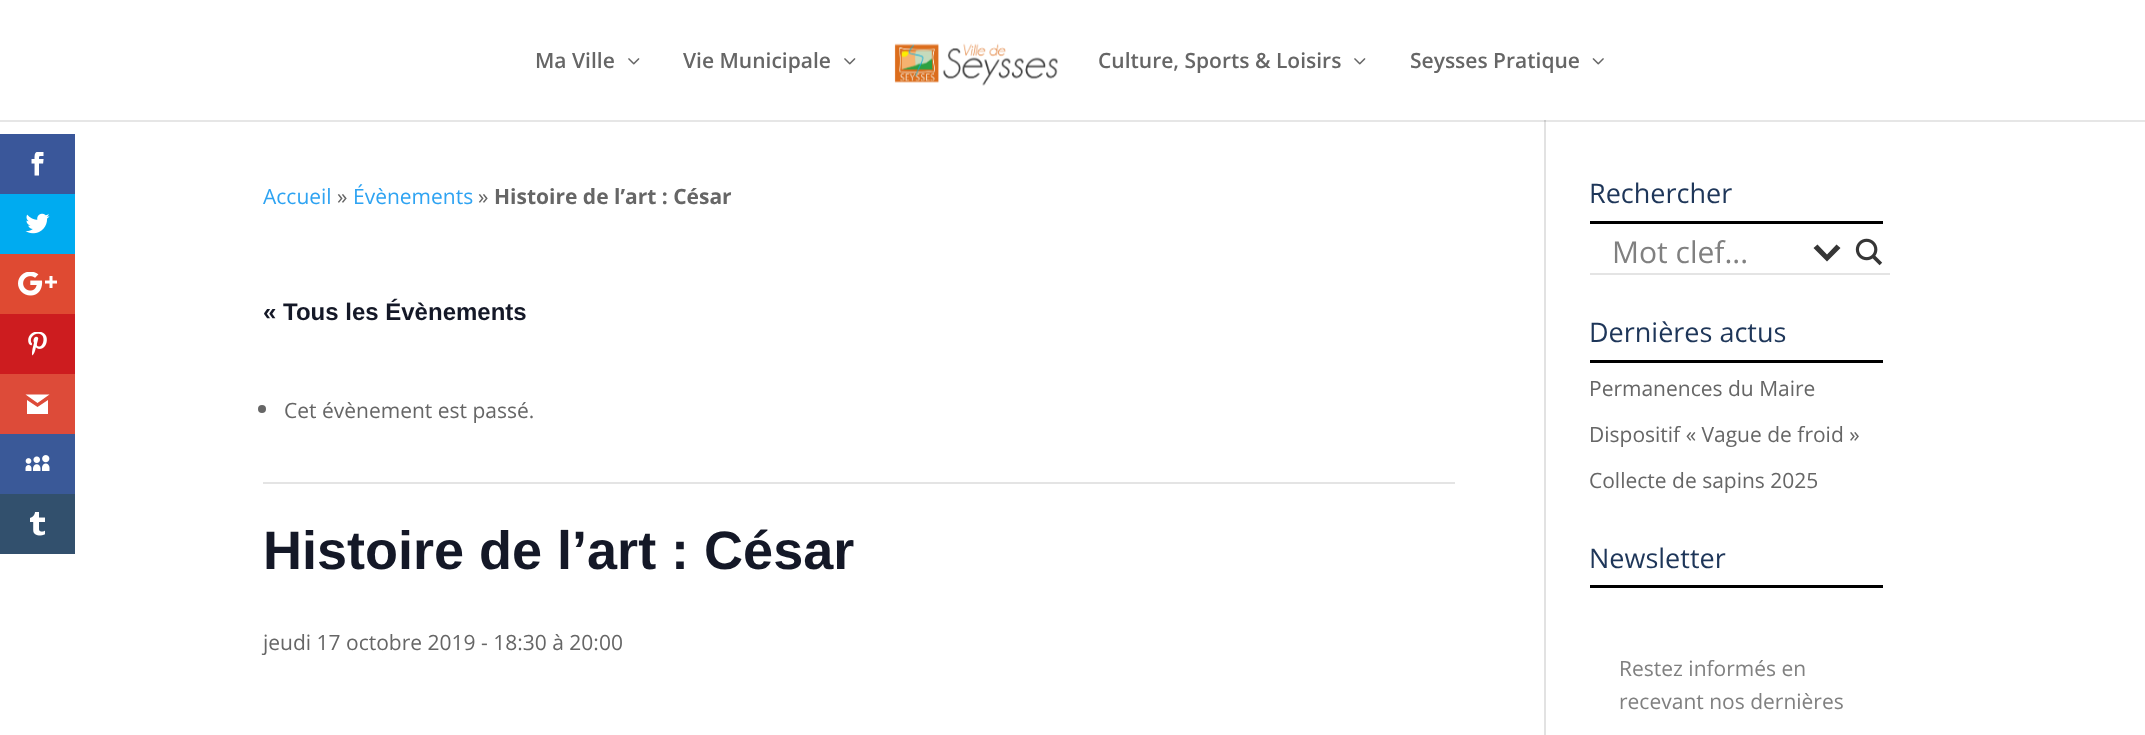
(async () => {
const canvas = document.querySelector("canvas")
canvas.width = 2145
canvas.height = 735
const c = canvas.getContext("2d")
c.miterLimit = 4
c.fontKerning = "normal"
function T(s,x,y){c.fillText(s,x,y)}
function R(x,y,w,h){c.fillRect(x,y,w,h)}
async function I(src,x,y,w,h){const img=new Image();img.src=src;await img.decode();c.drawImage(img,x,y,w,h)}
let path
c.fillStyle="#fff"
R(0,0,2145,735)
c.fillStyle="#e6e6e6"
R(0,120,2145,2)
c.fillStyle="#3a579a"
R(0,134,75,60)
await I("1.png",31,152,13,24)
c.fillStyle="#00abf0"
R(0,194,75,60)
await I("2.png",25,213,25,21)
c.fillStyle="#df4a32"
R(0,254,75,60)
await I("3.png",18,272,39,24)
c.fillStyle="#cd1c1f"
R(0,314,75,60)
await I("4.png",28,332,19,24)
c.fillStyle="#dd4b39"
R(0,374,75,60)
c.fillStyle="#fff"
path = new Path2D("M49.5 394.5h-24l12 8.5zm-12 12.5l-10.5-7v14h21v-14z")
c.fill(path)
c.fillStyle="#3a5998"
R(0,434,75,60)
await I("5.png",25,455,25,16)
c.fillStyle="#32506d"
R(0,494,75,60)
await I("6.png",30,512,15,24)
c.font="600 21px Open Sans"
c.fillStyle="#666"
T("Ma Ville",535,68)
await I("7.png",628,58,12,7)
T("Vie Municipale",683,68)
await I("7.png",844,58,12,7)
await I("8.png",894,43,164,43)
T("Culture, Sports & Loisirs",1098,68)
await I("7.png",1354,58,12,7)
T("Seysses Pratique",1410,68)
await I("9.png",1592,58,12,7)
c.fillStyle="#e2e2e2"
R(1544,122,2,613)
c.fillStyle="#cbcbcb"
R(1544,120,2,2)
c.font="21px Open Sans"
c.fillStyle="#2ea3f2"
T("Accueil",263,204)
c.fillStyle="#666"
T("»",337,204)
c.fillStyle="#2ea3f2"
T("Évènements",353,204)
c.fillStyle="#666"
T("»",478,204)
c.font="bold 21px Open Sans"
T("Histoire de l’art : César",494,204)
c.font="bold 24px Liberation Sans"
c.fillStyle="#141827"
T("« Tous les Évènements",263,320)
c.fillStyle="#e4e4e4"
R(263,482,1192,2)
c.fillStyle="#666"
c.beginPath()
c.arc(262,409,4,0,7)
c.fill()
c.font="21px Open Sans"
T("Cet évènement est passé.",284,418)
c.font="bold 54px Liberation Sans"
c.fillStyle="#141827"
T("Histoire de l’art : César",263,569)
c.font="21px Open Sans"
c.fillStyle="#666"
T("jeudi 17 octobre 2019 - 18:30 à 20:00",263,650)
c.fillStyle="#000"
R(1590,221,293,3)
c.font="27px Open Sans"
c.fillStyle="#1e3659"
T("Rechercher",1589,203)
c.fillStyle="#e4e4e4"
R(1590,273,300,2)
c.font="30px Open Sans"
c.fillStyle="#808080"
T("Mot clef...",1612,263)
c.fillStyle="#363636"
path = new Path2D("M1836.5 244.5l4 3.5l-13.5 13.5l-13.5-13.5l4-3.5l9.5 10z")
c.fill(path)
await I("10.png",1855,238,28,28)
c.fillStyle="#000"
R(1590,360,293,3)
c.font="27px Open Sans"
c.fillStyle="#1e3659"
T("Dernières actus",1589,342)
c.font="21px Open Sans"
c.fillStyle="#666"
T("Permanences du Maire",1589,396)
T("Dispositif « Vague de froid »",1589,442)
T("Collecte de sapins 2025",1589,488)
c.fillStyle="#000"
R(1590,585,293,3)
c.font="27px Open Sans"
c.fillStyle="#1e3659"
T("Newsletter",1589,568)
c.font="21px Open Sans"
c.fillStyle="#808080"
T("Restez informés en",1619,676)
T("recevant nos dernières",1619,709)
})()
